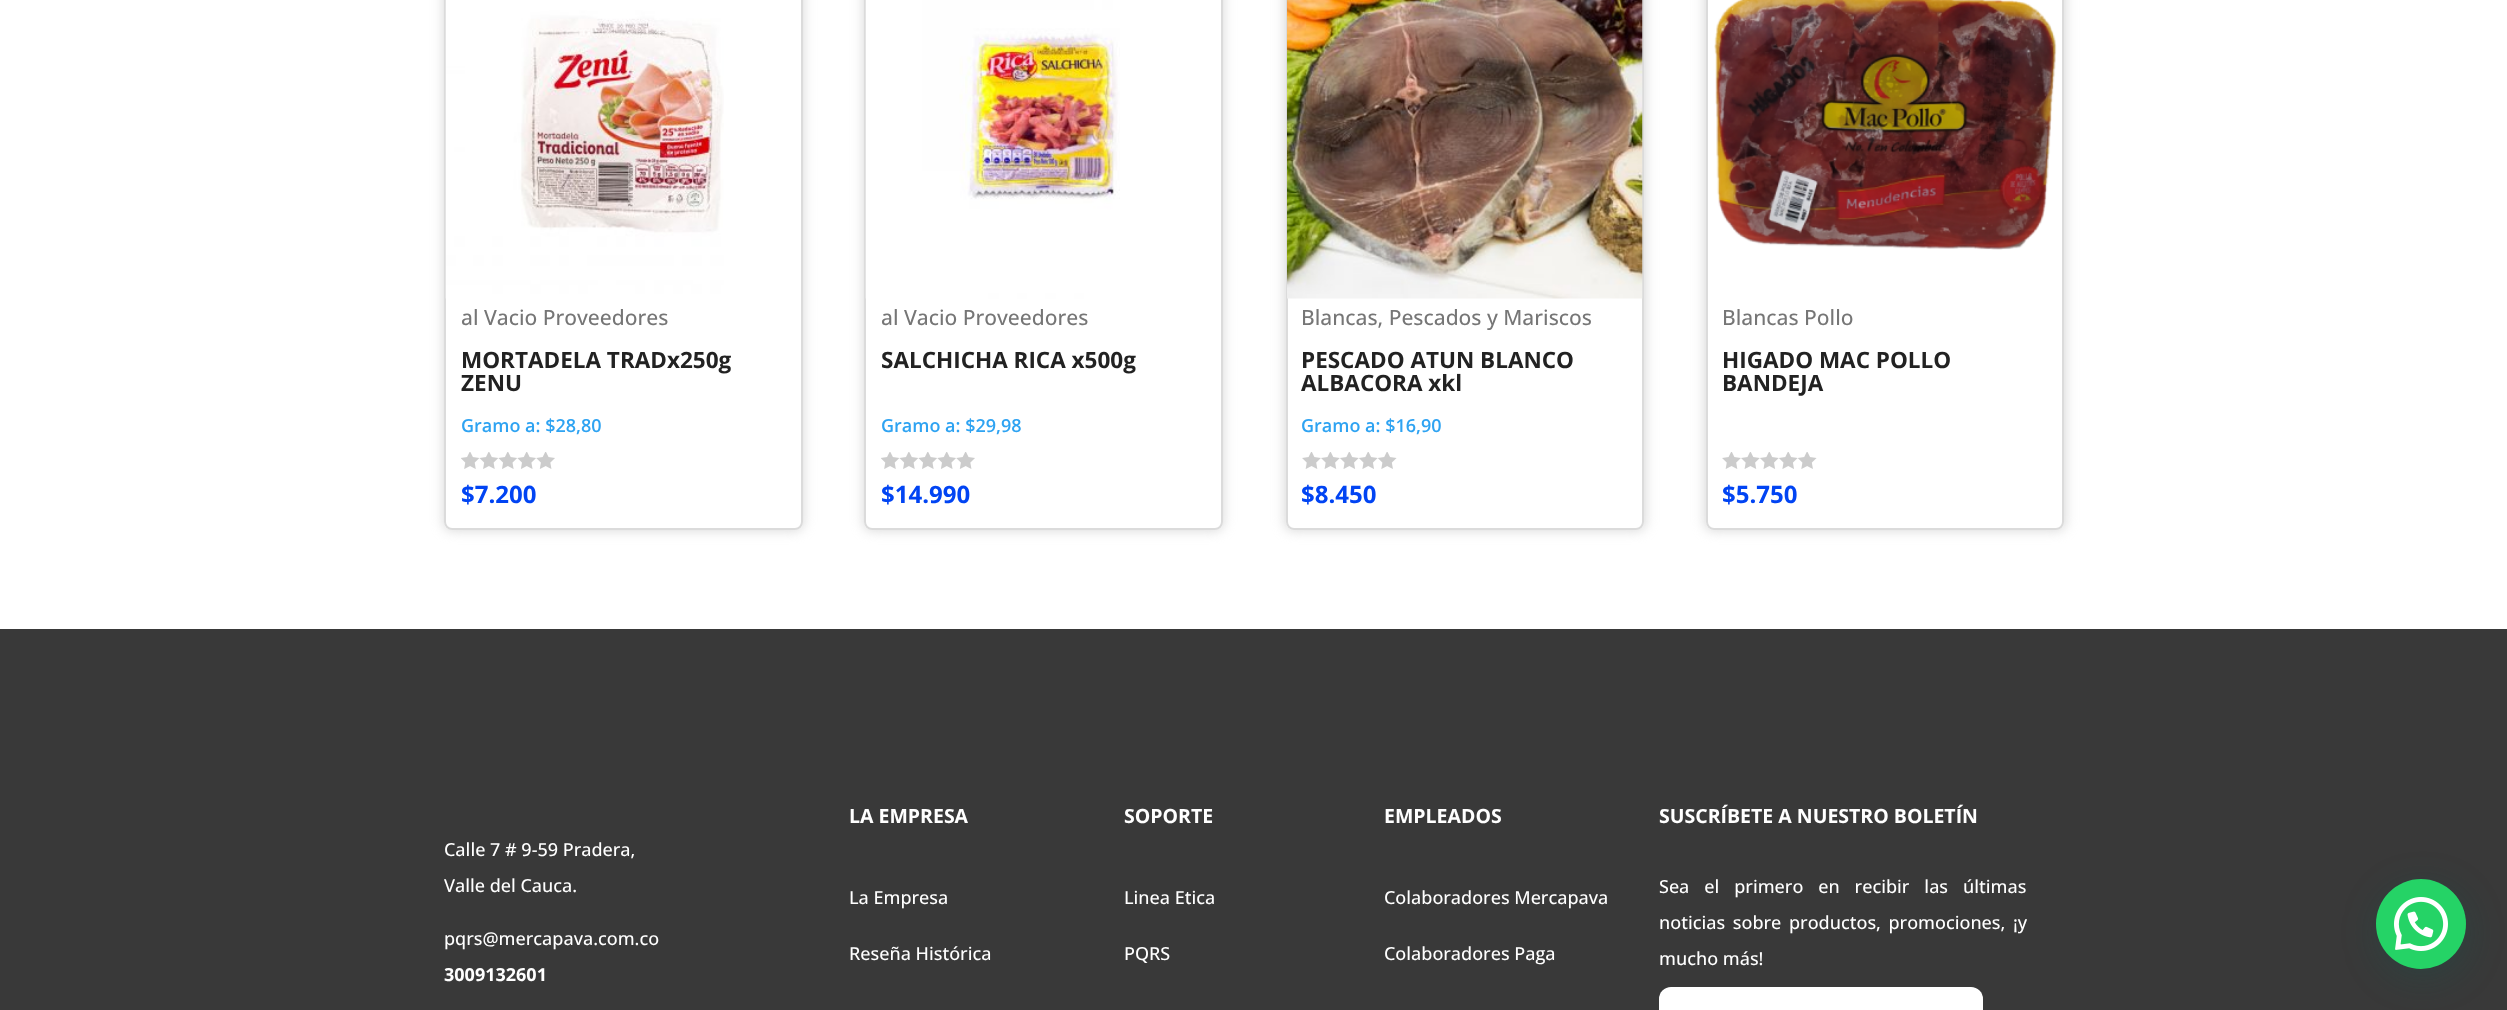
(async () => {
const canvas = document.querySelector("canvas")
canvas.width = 2507
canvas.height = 1010
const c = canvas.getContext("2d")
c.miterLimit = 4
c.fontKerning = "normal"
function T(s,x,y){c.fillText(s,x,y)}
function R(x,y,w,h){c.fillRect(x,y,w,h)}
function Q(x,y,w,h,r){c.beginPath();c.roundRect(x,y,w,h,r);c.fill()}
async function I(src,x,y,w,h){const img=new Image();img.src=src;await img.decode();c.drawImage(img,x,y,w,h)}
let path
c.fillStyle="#fff"
R(0,0,2507,1010)
c.save()
path = new Path2D("M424 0h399v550h-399zm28-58h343c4.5 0 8 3.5 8 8v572c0 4.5-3.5 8-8 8h-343c-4.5 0-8-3.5-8-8v-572c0-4.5 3.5-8 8-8z")
c.clip(path,"evenodd")
c.fillStyle="#ccccccb3"
c.filter="blur(6px)"
c.beginPath()
c.roundRect(443,-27,361,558,9)
c.fill()
c.filter="none"
c.restore()
c.beginPath()
c.roundRect(445,-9,357,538,7)
c.strokeStyle="#ccccccb3"
c.lineWidth=2
c.stroke()
await I("1.png",445,0,279,299)
c.font="500 21px Open Sans"
c.fillStyle="#767676"
T("al Vacio Proveedores",461,325)
c.font="bold 22.5px Open Sans"
c.fillStyle="#222"
T("MORTADELA TRADx250g",461,368)
T("ZENU",461,391)
c.font="600 18px Open Sans"
c.fillStyle="#2ea3f2"
T("Gramo a: $28,80",461,432)
await I("2.png",461,452,94,17)
c.font="bold 24px Open Sans"
c.fillStyle="#0144f3"
T("$7.200",461,503)
c.save()
path = new Path2D("M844 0h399v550h-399zm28-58h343c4.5 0 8 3.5 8 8v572c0 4.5-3.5 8-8 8h-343c-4.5 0-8-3.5-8-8v-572c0-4.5 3.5-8 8-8z")
c.clip(path,"evenodd")
c.fillStyle="#ccccccb3"
c.filter="blur(6px)"
c.beginPath()
c.roundRect(863,-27,361,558,9)
c.fill()
c.filter="none"
c.restore()
c.beginPath()
c.roundRect(865,-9,357,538,7)
c.stroke()
await I("3.png",865,0,255,299)
c.font="500 21px Open Sans"
c.fillStyle="#767676"
T("al Vacio Proveedores",881,325)
c.font="bold 22.5px Open Sans"
c.fillStyle="#222"
T("SALCHICHA RICA x500g",881,368)
c.font="600 18px Open Sans"
c.fillStyle="#2ea3f2"
T("Gramo a: $29,98",881,432)
await I("2.png",881,452,94,17)
c.font="bold 24px Open Sans"
c.fillStyle="#0144f3"
T("$14.990",881,503)
c.save()
path = new Path2D("M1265 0h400v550h-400zm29-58h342c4.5 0 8 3.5 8 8v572c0 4.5-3.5 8-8 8h-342c-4.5 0-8-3.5-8-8v-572c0-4.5 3.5-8 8-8z")
c.clip(path,"evenodd")
c.fillStyle="#ccccccb3"
c.filter="blur(6px)"
c.beginPath()
c.roundRect(1284,-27,362,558,9)
c.fill()
c.filter="none"
c.restore()
c.beginPath()
c.roundRect(1287,-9,356,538,7)
c.stroke()
await I("4.png",1287,0,356,299)
c.font="500 21px Open Sans"
c.fillStyle="#767676"
T("Blancas, Pescados y Mariscos",1301,325)
c.font="bold 22.5px Open Sans"
c.fillStyle="#222"
T("PESCADO ATUN BLANCO",1301,368)
T("ALBACORA xkl",1301,391)
c.font="600 18px Open Sans"
c.fillStyle="#2ea3f2"
T("Gramo a: $16,90",1301,432)
await I("5.png",1302,452,95,17)
c.font="bold 24px Open Sans"
c.fillStyle="#0144f3"
T("$8.450",1301,503)
c.save()
path = new Path2D("M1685 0h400v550h-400zm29-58h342c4.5 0 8 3.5 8 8v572c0 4.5-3.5 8-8 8h-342c-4.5 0-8-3.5-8-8v-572c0-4.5 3.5-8 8-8z")
c.clip(path,"evenodd")
c.fillStyle="#ccccccb3"
c.filter="blur(6px)"
c.beginPath()
c.roundRect(1704,-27,362,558,9)
c.fill()
c.filter="none"
c.restore()
c.beginPath()
c.roundRect(1707,-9,356,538,7)
c.stroke()
await I("6.png",1714,0,343,250)
c.font="500 21px Open Sans"
c.fillStyle="#767676"
T("Blancas Pollo",1722,325)
c.font="bold 22.5px Open Sans"
c.fillStyle="#222"
T("HIGADO MAC POLLO",1722,368)
T("BANDEJA",1722,391)
await I("5.png",1722,452,95,17)
c.font="bold 24px Open Sans"
c.fillStyle="#0144f3"
T("$5.750",1722,503)
c.fillStyle="#393939"
R(0,629,2507,381)
c.font="500 18px Open Sans"
c.fillStyle="#fff"
T("Calle 7 # 9-59 Pradera,",444,856)
T("Valle del Cauca.",444,892)
T("pqrs@mercapava.com.co",444,945)
c.font="bold 18px Open Sans"
T("3009132601",444,981)
c.font="bold 19.5px Open Sans"
T("LA EMPRESA",849,823)
c.font="500 18px Open Sans"
T("La Empresa",849,904)
T("Reseña Histórica",849,960)
c.font="bold 19.5px Open Sans"
T("SOPORTE",1124,823)
c.font="500 18px Open Sans"
T("Linea Etica",1124,904)
T("PQRS",1124,960)
c.font="bold 19.5px Open Sans"
T("EMPLEADOS",1384,823)
c.font="500 18px Open Sans"
T("Colaboradores Mercapava",1384,904)
T("Colaboradores Paga",1384,960)
c.font="bold 19.5px Open Sans"
T("SUSCRÍBETE A NUESTRO BOLETÍN",1659,823)
c.wordSpacing="10.25px"
c.font="500 18px Open Sans"
T("Sea el primero en recibir las últimas",1659,893)
c.wordSpacing="3px"
T("noticias sobre productos, promociones, ¡y",1659,929)
c.wordSpacing="0px"
T("mucho más!",1659,965)
Q(1659,987,324,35,12)
c.fillStyle="#075e543d"
c.filter="blur(18px)"
c.beginPath()
c.roundRect(2378,888,90,90,45)
c.fill()
c.filter="none"
c.fillStyle="#25d366"
c.beginPath()
c.arc(2421,924,45,0,7)
c.fill()
await I("7.png",2394,897,54,54)
})()
